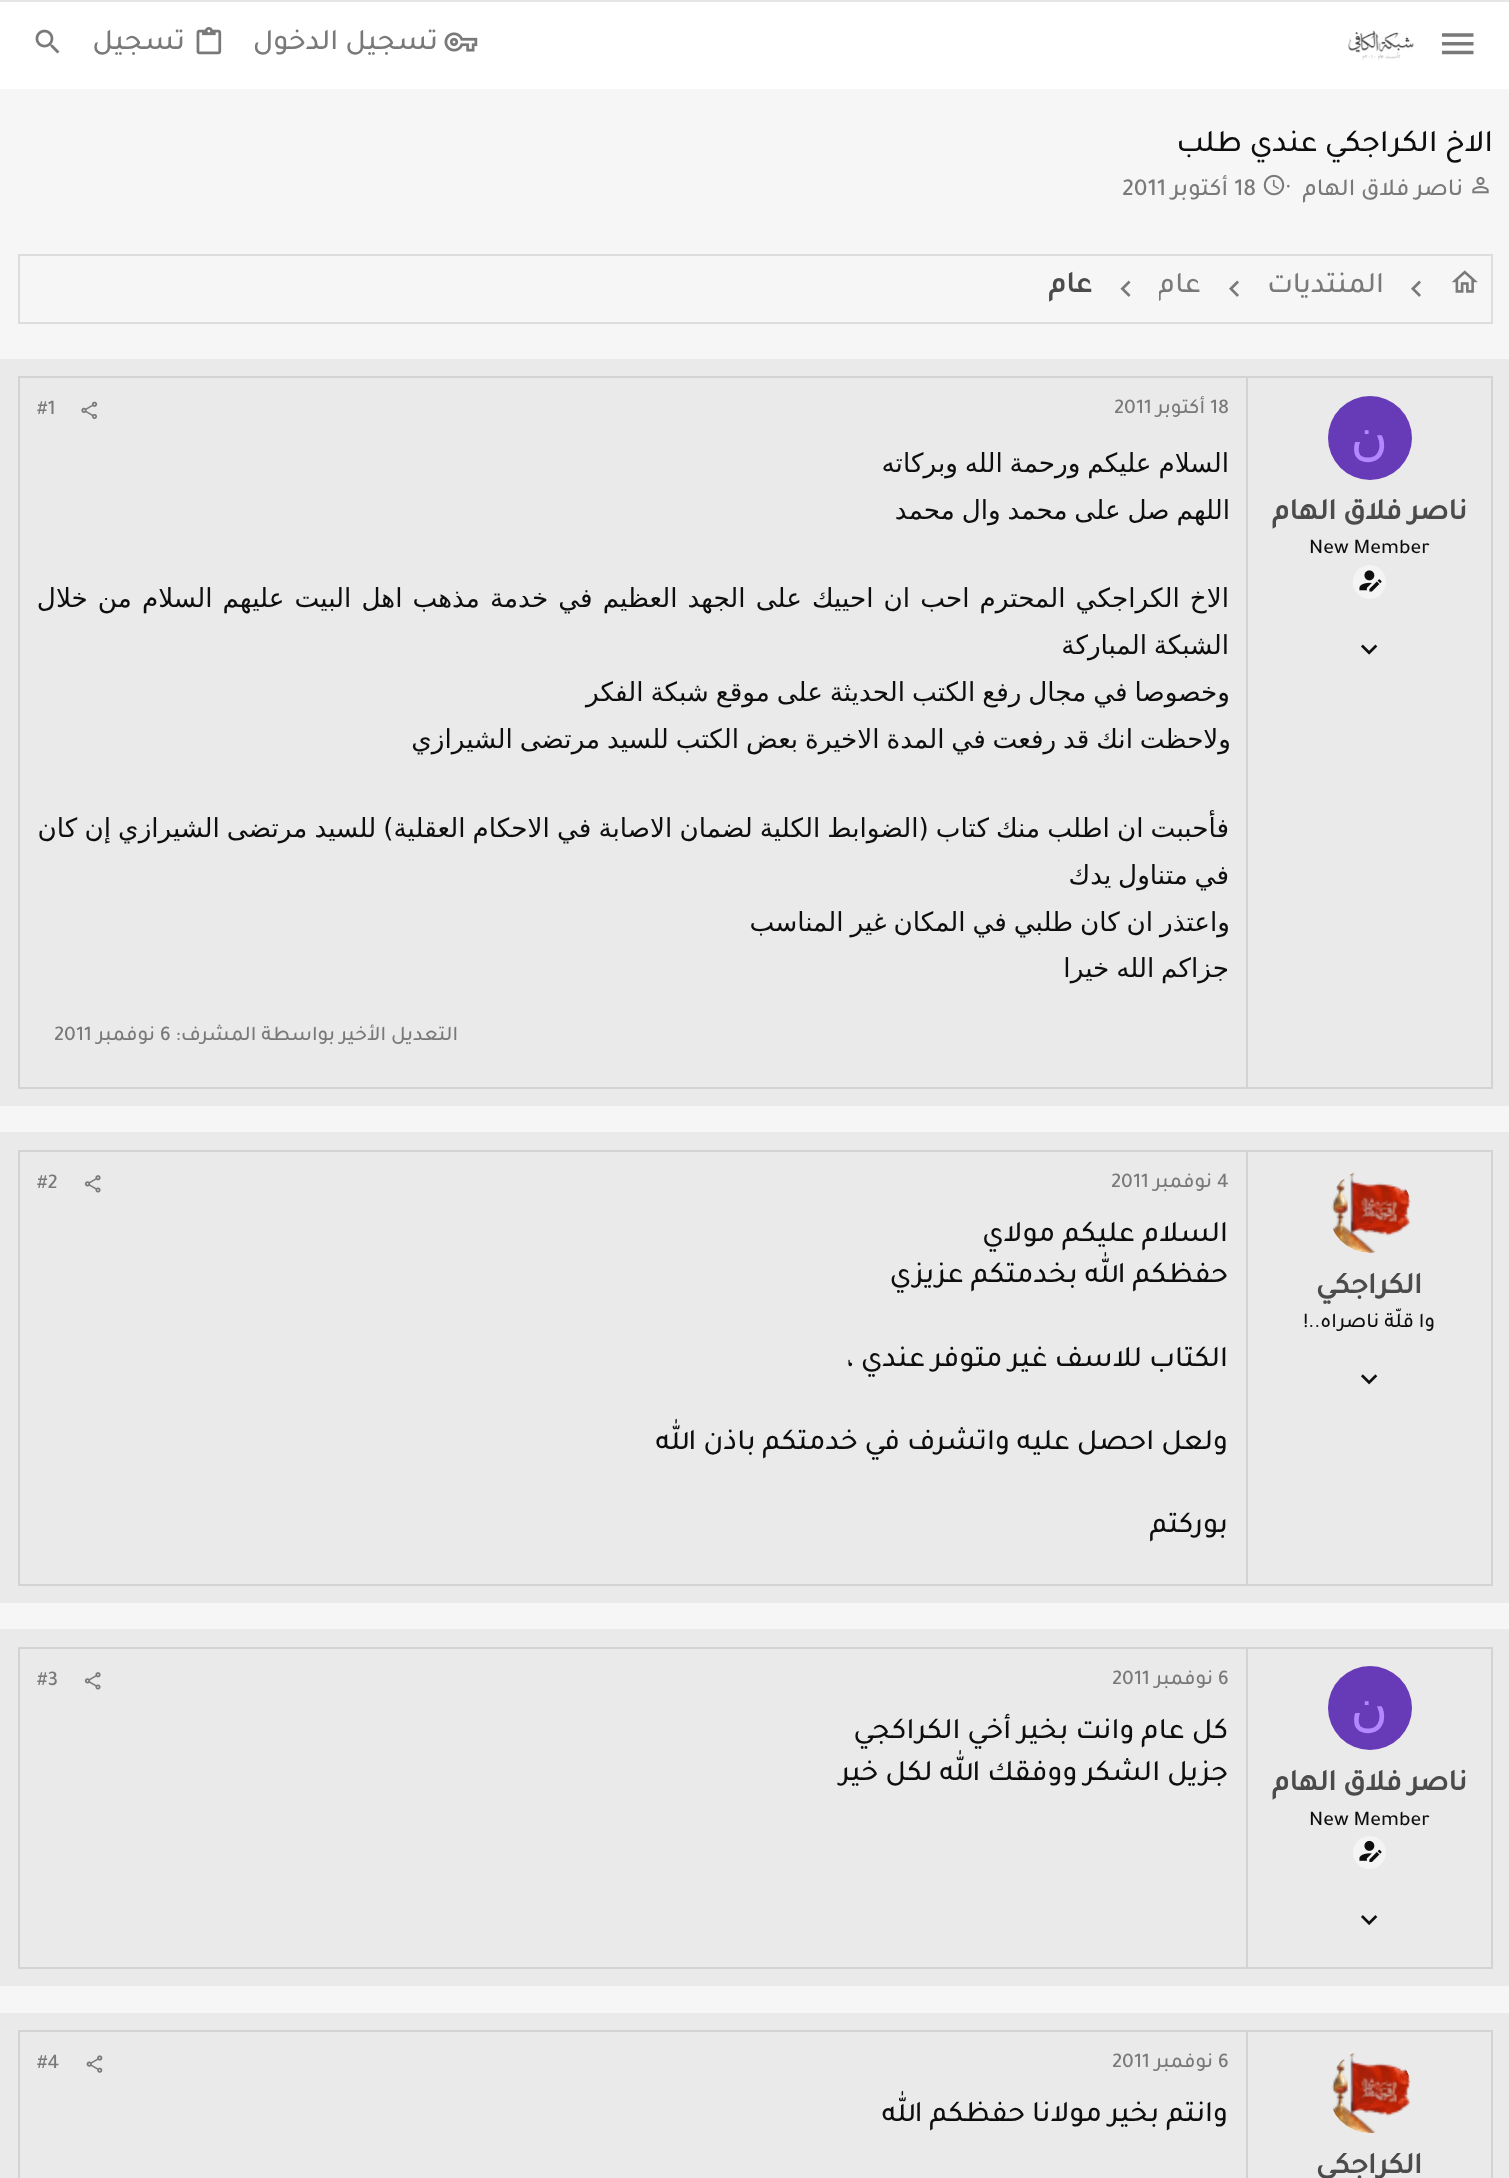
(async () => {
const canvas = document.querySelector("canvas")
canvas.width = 1509
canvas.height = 2178
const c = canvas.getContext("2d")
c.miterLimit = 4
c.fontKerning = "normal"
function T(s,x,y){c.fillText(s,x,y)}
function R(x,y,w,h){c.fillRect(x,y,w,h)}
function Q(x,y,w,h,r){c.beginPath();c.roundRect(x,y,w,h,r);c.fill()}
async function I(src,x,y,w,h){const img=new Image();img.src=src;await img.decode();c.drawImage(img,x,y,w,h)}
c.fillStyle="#f6f6f6"
R(0,0,1509,2178)
c.fillStyle="#fff"
R(0,2,1509,87)
c.fillStyle="#e6e6e6"
R(0,0,1509,2)
await I("1.png",1442,33,32,22)
await I("2.png",1348,30,66,31)
await I("3.png",444,32,34,20)
c.direction="rtl"
c.font="500 29.75px Tajawal"
c.fillStyle="#797979"
T("تسجيل الدخول",438,49)
await I("4.png",196,27,26,28)
T("تسجيل",185,49)
await I("5.png",35,29,25,25)
c.font="500 31.5px Tajawal"
c.fillStyle="#0e0e0e"
T("الاخ الكراجكي عندي طلب",1493,151)
await I("6.png",1472,176,17,18)
c.font="500 24.5px Tajawal"
c.fillStyle="#797979"
T("ناصر فلاق الهام",1463,195)
c.direction="ltr"
T("·",1286,195)
await I("7.png",1263,174,22,22)
T("18",1234,195)
c.direction="rtl"
T("أكتوبر",1228,195)
c.direction="ltr"
T("2011",1122,195)
c.strokeStyle="#ddd"
c.lineWidth=2
c.strokeRect(19,255,1473,68)
await I("8.png",1451,270,27,23)
await I("9.png",1411,280,10,17)
c.direction="rtl"
c.font="500 29.75px Tajawal"
T("المنتديات",1384,292)
await I("9.png",1229,280,10,17)
c.save()
c.beginPath()
c.rect(1159,268,42,42)
c.clip()
T("عام",1201,292)
c.restore()
await I("10.png",1120,280,11,17)
c.font="bold 29.75px Tajawal"
c.fillStyle="#4b4b4b"
T("عام",1092,292)
c.fillStyle="#eaeaea"
R(0,359,1509,747)
c.strokeStyle="#d3d3d3"
c.strokeRect(19,377,1473,711)
c.fillStyle="#d3d3d3"
R(1246,378,2,709)
c.fillStyle="#673ab7"
c.beginPath()
c.arc(1370,438,42,0,7)
c.fill()
c.font="51px DejaVu Sans"
c.fillStyle="#b388ff"
T("ن",1388,454)
c.font="bold 29.75px Tajawal"
c.fillStyle="#4b4b4b"
T("ناصر فلاق الهام",1467,519)
c.direction="ltr"
c.font="500 21px Tajawal"
c.fillStyle="#0e0e0e"
T("New Member",1309,553)
c.fillStyle="#f4f4f4"
Q(1353,565,33,34,16.5)
await I("11.png",1359,570,23,22)
await I("12.png",1361,644,17,11)
c.fillStyle="#797979"
T("18",1210,413)
c.direction="rtl"
T("أكتوبر",1205,413)
c.direction="ltr"
T("2011",1114,413)
await I("13.png",81,401,17,18)
T("#1",37,414)
c.wordSpacing="-1.5px"
c.direction="rtl"
c.font="26.25px DejaVu Sans"
c.fillStyle="#0e0e0e"
T("السلام عليكم ورحمة الله وبركاته",1229,472)
T("اللهم صل على محمد وال محمد",1230,519)
c.wordSpacing="1.7px"
T("الاخ الكراجكي المحترم احب ان احييك على الجهد العظيم في خدمة مذهب اهل البيت عليهم السلام من خلال",1229,607)
c.wordSpacing="-1.5px"
T("الشبكة المباركة",1229,654)
T("وخصوصا في مجال رفع الكتب الحديثة على موقع شبكة الفكر",1230,701)
T("ولاحظت انك قد رفعت في المدة الاخيرة بعض الكتب للسيد مرتضى الشيرازي",1231,748)
c.wordSpacing="-1.25px"
T("فأحببت ان اطلب منك كتاب (الضوابط الكلية لضمان الاصابة في الاحكام العقلية) للسيد مرتضى الشيرازي إن كان",1229,837)
c.wordSpacing="-1.5px"
T("في متناول يدك",1229,884)
T("واعتذر ان كان طلبي في المكان غير المناسب",1230,931)
T("جزاكم الله خيرا",1229,977)
c.wordSpacing="0px"
c.font="500 21px Tajawal"
c.fillStyle="#797979"
T("التعديل الأخير بواسطة المشرف:",458,1040)
c.direction="ltr"
T("6",160,1040)
c.direction="rtl"
T("نوفمبر",155,1040)
c.direction="ltr"
T("2011",54,1040)
c.fillStyle="#eaeaea"
R(0,1132,1509,471)
c.strokeRect(19,1151,1473,434)
c.fillStyle="#d3d3d3"
R(1246,1152,2,432)
await I("14.png",1331,1172,80,81)
c.direction="rtl"
c.font="bold 29.75px Tajawal"
c.fillStyle="#4b4b4b"
T("الكراجكي",1422,1293)
c.font="500 21px Tajawal"
c.fillStyle="#0e0e0e"
T("وا قلّة ناصراه..!",1435,1327)
await I("15.png",1361,1374,17,11)
c.direction="ltr"
c.fillStyle="#797979"
T("4",1217,1187)
c.direction="rtl"
T("نوفمبر",1212,1187)
c.direction="ltr"
T("2011",1111,1187)
await I("16.png",84,1175,17,18)
T("#2",37,1188)
c.direction="rtl"
c.font="500 29.75px Tajawal"
c.fillStyle="#0e0e0e"
T("السلام عليكم مولاي",1228,1241)
T("حفظكم الله بخدمتكم عزيزي",1228,1282)
T("الكتاب للاسف غير متوفر عندي ،",1228,1366)
T("ولعل احصل عليه واتشرف في خدمتكم باذن الله",1228,1449)
T("بوركتم",1228,1532)
c.fillStyle="#eaeaea"
R(0,1629,1509,357)
c.strokeRect(19,1648,1473,320)
c.fillStyle="#d3d3d3"
R(1246,1649,2,318)
c.fillStyle="#673ab7"
c.beginPath()
c.arc(1370,1708,42,0,7)
c.fill()
c.font="51px DejaVu Sans"
c.fillStyle="#b388ff"
T("ن",1388,1725)
c.font="bold 29.75px Tajawal"
c.fillStyle="#4b4b4b"
T("ناصر فلاق الهام",1467,1790)
c.direction="ltr"
c.font="500 21px Tajawal"
c.fillStyle="#0e0e0e"
T("New Member",1309,1825)
c.fillStyle="#f4f4f4"
c.beginPath()
c.arc(1369.5,1852.5,16.5,0,7)
c.fill()
await I("17.png",1359,1840,23,22)
await I("18.png",1361,1915,17,11)
c.fillStyle="#797979"
T("6",1218,1684)
c.direction="rtl"
T("نوفمبر",1213,1684)
c.direction="ltr"
T("2011",1112,1684)
await I("16.png",84,1672,17,18)
T("#3",37,1685)
c.direction="rtl"
c.font="500 29.75px Tajawal"
c.fillStyle="#0e0e0e"
T("كل عام وانت بخير أخي الكراكجي",1228,1738)
T("جزيل الشكر ووفقك الله لكل خير",1228,1780)
c.fillStyle="#eaeaea"
R(0,2013,1509,165)
c.strokeRect(19,2031,1473,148)
c.direction="ltr"
c.font="500 21px Tajawal"
c.fillStyle="#797979"
T("6",1218,2067)
c.direction="rtl"
T("نوفمبر",1213,2067)
c.direction="ltr"
T("2011",1112,2067)
await I("19.png",86,2055,17,18)
T("#4",37,2068)
c.direction="rtl"
c.font="500 29.75px Tajawal"
c.fillStyle="#0e0e0e"
T("وانتم بخير مولانا حفظكم الله",1228,2121)
c.fillStyle="#d3d3d3"
R(1246,2032,2,146)
await I("20.png",1331,2053,80,80)
c.font="bold 29.75px Tajawal"
c.fillStyle="#4b4b4b"
T("الكراجكي",1422,2173)
})()
